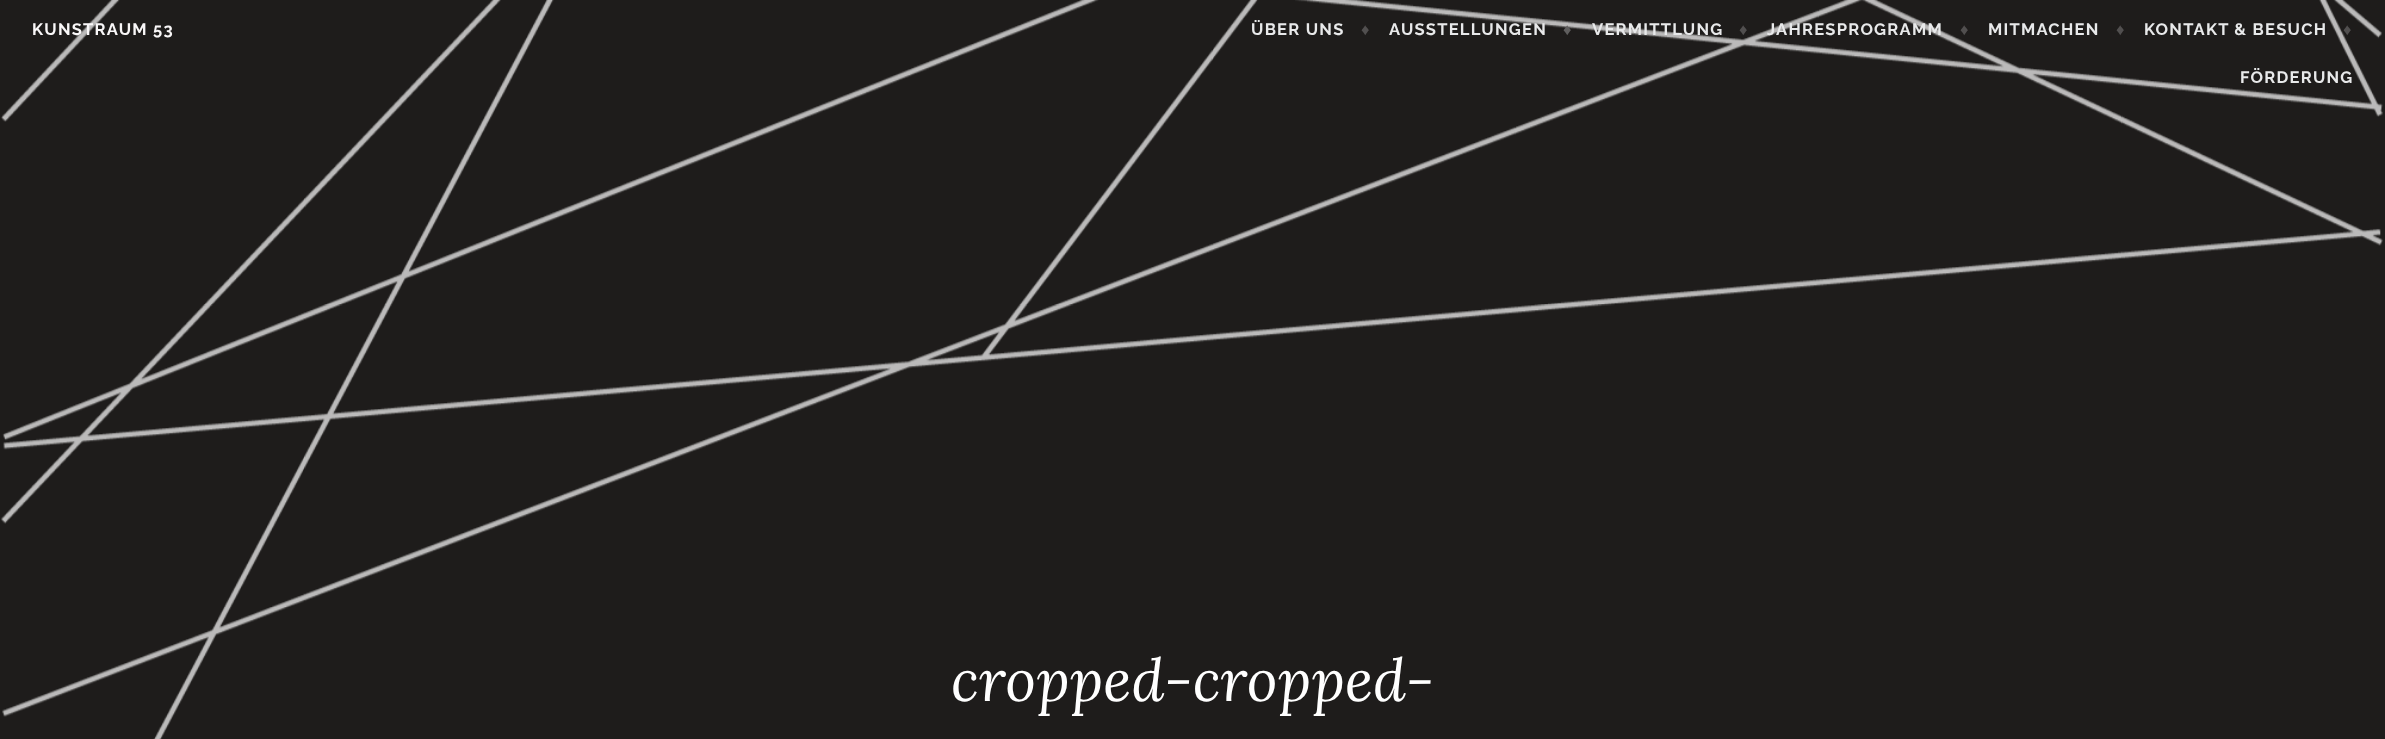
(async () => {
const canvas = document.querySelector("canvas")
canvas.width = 2385
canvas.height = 739
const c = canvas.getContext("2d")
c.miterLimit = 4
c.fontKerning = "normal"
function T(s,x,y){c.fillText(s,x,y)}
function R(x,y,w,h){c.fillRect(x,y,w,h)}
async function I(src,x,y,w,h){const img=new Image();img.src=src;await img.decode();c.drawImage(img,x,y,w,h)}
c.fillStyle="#1e1c1b"
R(0,0,2385,739)
await I("1.png",1,0,2382,739)
c.letterSpacing="1.25px"
c.font="bold 16.5px Raleway"
c.fillStyle="#f9f7f8"
T("KUNSTRAUM 53",32,35)
c.fillStyle="#e8e9ea"
T("ÜBER UNS",1251,35)
c.font="bold 16.5px Liberation Sans"
c.fillStyle="#514f4f"
T("♦",1361,35)
c.font="bold 16.5px Raleway"
c.fillStyle="#e8e9ea"
T("AUSSTELLUNGEN",1389,35)
c.font="bold 16.5px Liberation Sans"
c.fillStyle="#5f5e5e"
T("♦",1563,35)
c.font="bold 16.5px Raleway"
c.fillStyle="#e8e9ea"
T("VERMITTLUNG",1592,35)
c.font="bold 16.5px Liberation Sans"
c.fillStyle="#514f4f"
T("♦",1739,35)
c.font="bold 16.5px Raleway"
c.fillStyle="#e8e9ea"
T("JAHRESPROGRAMM",1767,35)
c.font="bold 16.5px Liberation Sans"
c.fillStyle="#514f4f"
T("♦",1960,35)
c.font="bold 16.5px Raleway"
c.fillStyle="#e8e9ea"
T("MITMACHEN",1988,35)
c.font="bold 16.5px Liberation Sans"
c.fillStyle="#514f4f"
T("♦",2116,35)
c.font="bold 16.5px Raleway"
c.fillStyle="#e8e9ea"
T("KONTAKT & BESUCH",2144,35)
c.font="bold 16.5px Liberation Sans"
c.fillStyle="#514f4f"
T("♦",2343,35)
c.font="bold 16.5px Raleway"
c.fillStyle="#e8e9ea"
T("FÖRDERUNG",2240,83)
c.letterSpacing="0px"
c.font="italic 59px Lora"
c.fillStyle="#fff"
T("cropped-cropped-",951,701)
})()
